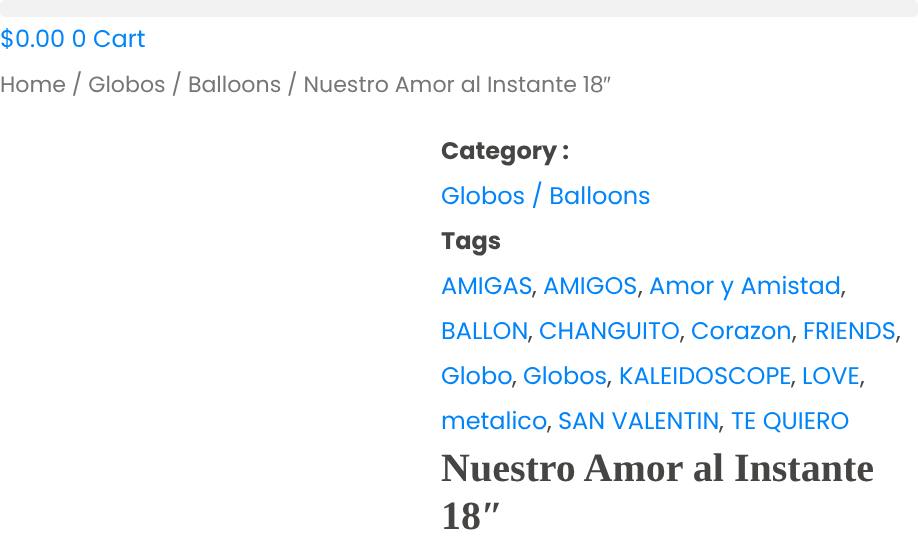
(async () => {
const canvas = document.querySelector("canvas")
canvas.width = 918
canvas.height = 557
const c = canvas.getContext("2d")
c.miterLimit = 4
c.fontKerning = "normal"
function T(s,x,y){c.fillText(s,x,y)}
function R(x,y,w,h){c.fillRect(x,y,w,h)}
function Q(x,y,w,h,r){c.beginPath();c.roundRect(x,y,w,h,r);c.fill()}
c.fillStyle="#fff"
R(0,0,918,557)
c.fillStyle="#f2f2f2"
Q(0,0,918,17,5)
c.font="24px Poppins"
c.fillStyle="#0184fa"
T("$0.00 0 Cart",0,47)
c.font="22.1px Poppins"
c.fillStyle="#767676"
T("Home / Globos / Balloons / Nuestro Amor al Instante 18",0,92)
c.font="22.1px Liberation Sans"
T("″",603,92)
c.font="bold 24px Poppins"
c.fillStyle="#464544"
T("Category :",441,159)
c.font="24px Poppins"
c.fillStyle="#0184fa"
T("Globos / Balloons",441,204)
c.font="bold 24px Poppins"
c.fillStyle="#464544"
T("Tags",441,249)
c.font="24px Poppins"
c.fillStyle="#0184fa"
T("AMIGAS",441,294)
c.fillStyle="#464544"
T(",",532,294)
c.fillStyle="#0184fa"
T("AMIGOS",543,294)
c.fillStyle="#464544"
T(",",638,294)
c.fillStyle="#0184fa"
T("Amor y Amistad",649,294)
c.fillStyle="#464544"
T(",",841,294)
c.fillStyle="#0184fa"
T("BALLON",441,339)
c.fillStyle="#464544"
T(",",528,339)
c.fillStyle="#0184fa"
T("CHANGUITO",539,339)
c.fillStyle="#464544"
T(",",680,339)
c.fillStyle="#0184fa"
T("Corazon",691,339)
c.fillStyle="#464544"
T(",",792,339)
c.fillStyle="#0184fa"
T("FRIENDS",803,339)
c.fillStyle="#464544"
T(",",896,339)
c.fillStyle="#0184fa"
T("Globo",441,384)
c.fillStyle="#464544"
T(",",512,384)
c.fillStyle="#0184fa"
T("Globos",523,384)
c.fillStyle="#464544"
T(",",607,384)
c.fillStyle="#0184fa"
T("KALEIDOSCOPE",619,384)
c.fillStyle="#464544"
T(",",791,384)
c.fillStyle="#0184fa"
T("LOVE",802,384)
c.fillStyle="#464544"
T(",",860,384)
c.fillStyle="#0184fa"
T("metalico",441,429)
c.fillStyle="#464544"
T(",",547,429)
c.fillStyle="#0184fa"
T("SAN VALENTIN",558,429)
c.fillStyle="#464544"
T(",",719,429)
c.fillStyle="#0184fa"
T("TE QUIERO",731,429)
c.font="bold 40px Liberation Serif"
c.fillStyle="#464544"
T("Nuestro Amor al Instante",441,481)
T("18″",441,529)
})()
